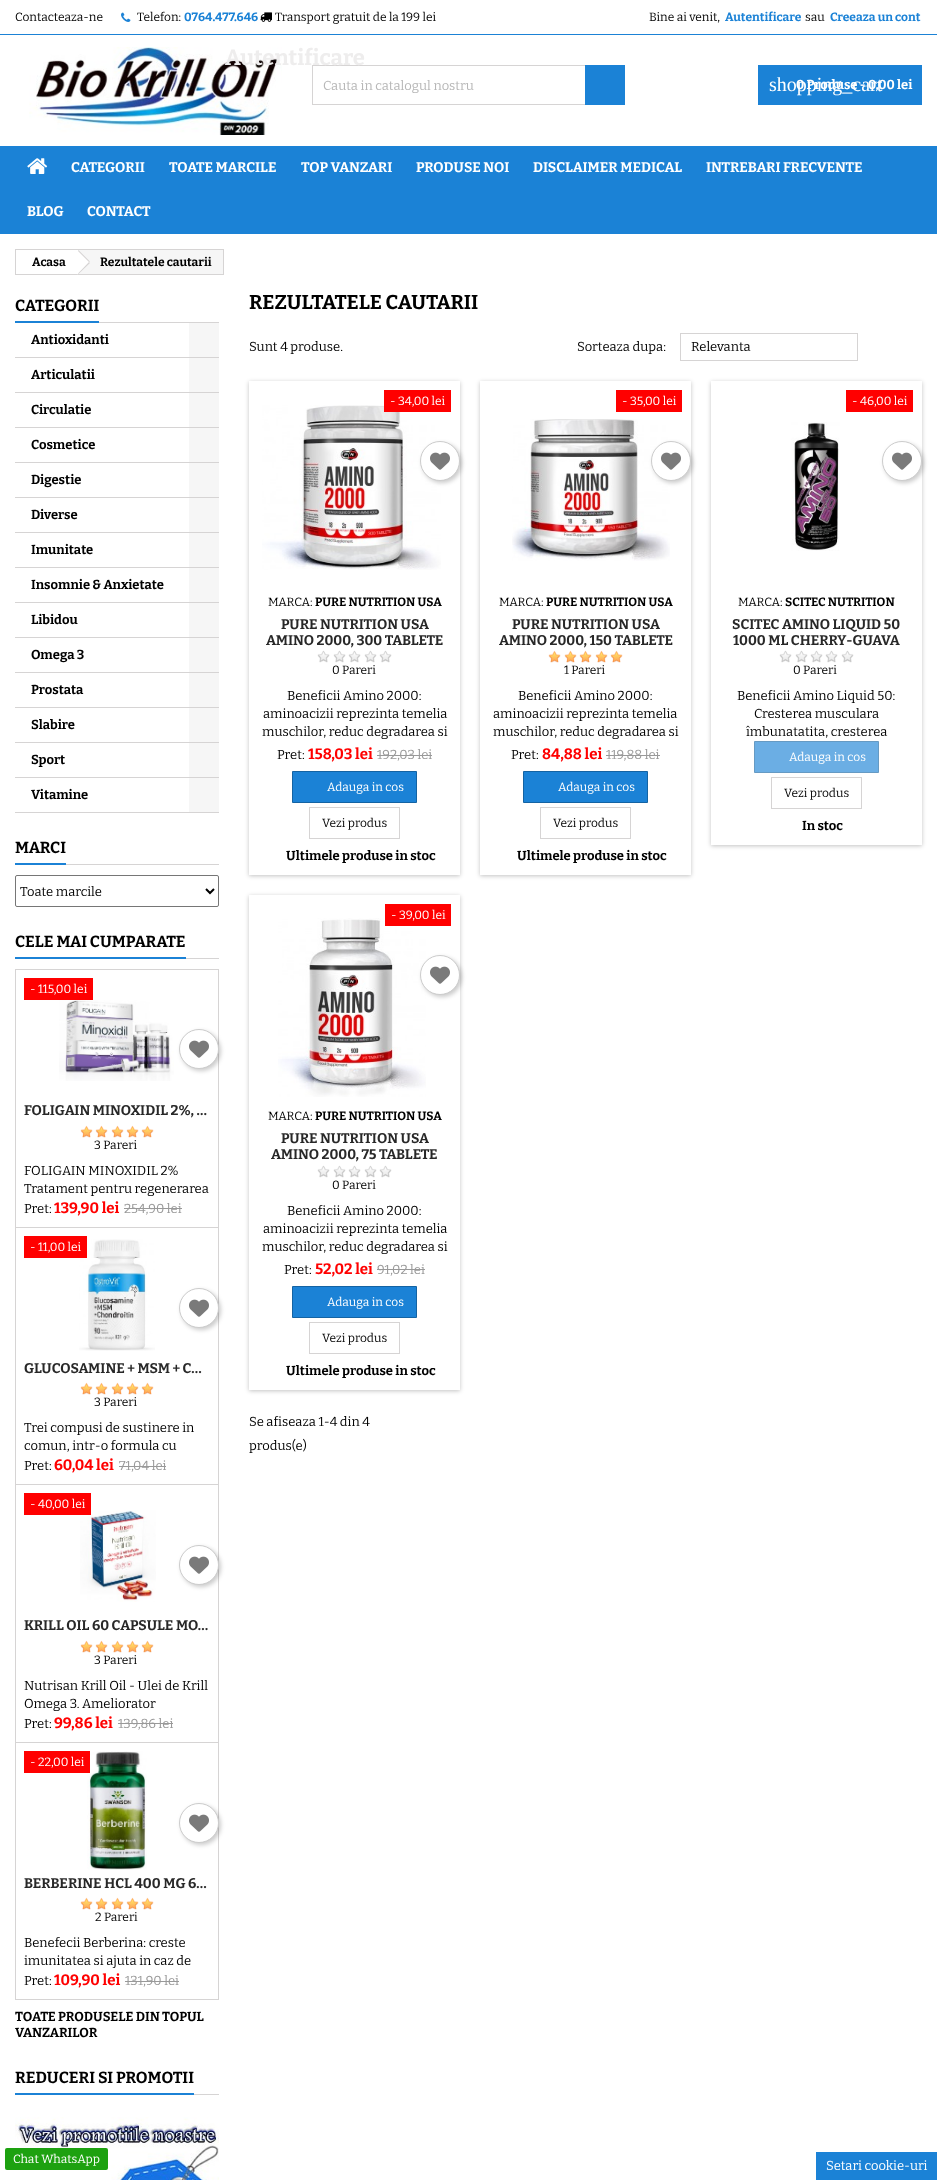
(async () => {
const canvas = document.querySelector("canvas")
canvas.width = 937
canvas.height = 2180
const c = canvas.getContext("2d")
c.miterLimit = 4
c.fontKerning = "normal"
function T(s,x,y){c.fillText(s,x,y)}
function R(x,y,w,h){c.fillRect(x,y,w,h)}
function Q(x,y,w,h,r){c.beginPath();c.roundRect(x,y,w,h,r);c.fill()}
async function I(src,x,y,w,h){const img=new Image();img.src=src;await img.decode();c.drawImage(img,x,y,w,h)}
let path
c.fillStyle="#fff"
R(0,0,937,2180)
c.fillStyle="#1b82d6"
R(0,34,937,1)
c.font="12px Bitter"
c.fillStyle="#000"
T("Contacteaza-ne",15,21)
await I("1.png",121,12,10,10)
T("Telefon:",137,21)
c.font="bold 12px Bitter"
c.fillStyle="#1b82d6"
T("0764.477.646",184,21)
await I("2.png",260,12,12,10)
c.font="12px Bitter"
c.fillStyle="#000"
T("Transport gratuit de la 199 lei",275,21)
T("Bine ai venit,",649,21)
c.font="bold 12px Bitter"
c.fillStyle="#1b82d6"
T("Autentificare",725,21)
c.font="12px Bitter"
c.fillStyle="#000"
T("sau",805,21)
c.font="bold 12px Bitter"
c.fillStyle="#1b82d6"
T("Creeaza un cont",830,21)
await I("3.png",29,47,253,88)
c.strokeStyle="#d6d4d4"
c.strokeRect(312.5,65.5,312,39)
c.font="13px Bitter"
c.fillStyle="#b7b7b7"
T("Cauta in catalogul nostru",323,90)
c.fillStyle="#1b82d6"
R(585,65,40,40)
R(758,65,164,40)
c.font="bold 13px Bitter"
c.fillStyle="#fff"
T("0 Produse - 0,00 lei",796,89)
c.font="20px Liberation Serif"
T("shopping_cart",769,91)
c.fillStyle="#1b82d6"
R(0,146,937,88)
await I("4.png",27,158,21,16)
c.font="bold 14px Bitter"
c.fillStyle="#fff"
T("CATEGORII",71,172)
T("TOATE MARCILE",169,172)
T("TOP VANZARI",301,172)
T("PRODUSE NOI",416,172)
T("DISCLAIMER MEDICAL",533,172)
T("INTREBARI FRECVENTE",706,172)
T("BLOG",27,216)
T("CONTACT",87,216)
c.strokeRect(15.5,249.5,208,25)
c.font="bold 12px Bitter"
c.fillStyle="#000"
T("Acasa",32,266)
c.fillStyle="#f6f6f6"
R(78,250,145,24)
c.fillStyle="#fff"
path = new Path2D("M79 251l10 10c1 .5 1 2 0 2.5l-10 10c-.5 1-2 1-2.5 0l-10-10c-1-.5-1-2 0-2.5l10-10c.5-1 2-1 2.5 0z")
c.fill(path)
c.fillStyle="#d6d4d4"
path = new Path2D("M78.5 250l11.5 11.5l-1 .5l-11-11zm10.5 12l1 1l-11.5 11l-.5-.5z")
c.fill(path)
c.fillStyle="#000"
T("Rezultatele cautarii",100,266)
c.fillStyle="#d6d4d4"
R(99,322,120,1)
c.fillStyle="#1b82d6"
R(15,321,84,2)
c.font="bold 16px Bitter"
c.fillStyle="#000"
T("CATEGORII",15,311)
c.fillStyle="#d6d4d4"
R(15,357,204,1)
c.font="bold 13px Bitter"
c.fillStyle="#000"
T("Antioxidanti",31,344)
c.fillStyle="#f6f6f6"
R(189,323,30,34)
c.fillStyle="#d6d4d4"
R(15,392,204,1)
c.fillStyle="#000"
T("Articulatii",31,379)
c.fillStyle="#f6f6f6"
R(189,358,30,34)
c.fillStyle="#d6d4d4"
R(15,427,204,1)
c.fillStyle="#000"
T("Circulatie",31,414)
c.fillStyle="#f6f6f6"
R(189,393,30,34)
c.fillStyle="#d6d4d4"
R(15,462,204,1)
c.fillStyle="#000"
T("Cosmetice",31,449)
c.fillStyle="#f6f6f6"
R(189,428,30,34)
c.fillStyle="#d6d4d4"
R(15,497,204,1)
c.fillStyle="#000"
T("Digestie",31,484)
c.fillStyle="#f6f6f6"
R(189,463,30,34)
c.fillStyle="#d6d4d4"
R(15,532,204,1)
c.fillStyle="#000"
T("Diverse",31,519)
c.fillStyle="#f6f6f6"
R(189,498,30,34)
c.fillStyle="#d6d4d4"
R(15,567,204,1)
c.fillStyle="#000"
T("Imunitate",31,554)
c.fillStyle="#f6f6f6"
R(189,533,30,34)
c.fillStyle="#d6d4d4"
R(15,602,204,1)
c.fillStyle="#000"
T("Insomnie & Anxietate",31,589)
c.fillStyle="#f6f6f6"
R(189,568,30,34)
c.fillStyle="#d6d4d4"
R(15,637,204,1)
c.fillStyle="#000"
T("Libidou",31,624)
c.fillStyle="#f6f6f6"
R(189,603,30,34)
c.fillStyle="#d6d4d4"
R(15,672,204,1)
c.fillStyle="#000"
T("Omega 3",31,659)
c.fillStyle="#f6f6f6"
R(189,638,30,34)
c.fillStyle="#d6d4d4"
R(15,707,204,1)
c.fillStyle="#000"
T("Prostata",31,694)
c.fillStyle="#f6f6f6"
R(189,673,30,34)
c.fillStyle="#d6d4d4"
R(15,742,204,1)
c.fillStyle="#000"
T("Slabire",31,729)
c.fillStyle="#f6f6f6"
R(189,708,30,34)
c.fillStyle="#d6d4d4"
R(15,777,204,1)
c.fillStyle="#000"
T("Sport",31,764)
c.fillStyle="#f6f6f6"
R(189,743,30,34)
c.fillStyle="#d6d4d4"
R(15,812,204,1)
c.fillStyle="#000"
T("Vitamine",31,799)
c.fillStyle="#f6f6f6"
R(189,778,30,34)
c.fillStyle="#d6d4d4"
R(66,864,153,1)
c.fillStyle="#1b82d6"
R(15,863,51,2)
c.font="bold 16px Bitter"
c.fillStyle="#000"
T("MARCI",15,853)
c.beginPath()
c.roundRect(15.5,875.5,203,31,1.5)
c.strokeStyle="#767676"
c.stroke()
path = new Path2D("M206 889l4 4l4-4")
c.strokeStyle="#000"
c.lineWidth=2
c.stroke(path)
c.font="13px Bitter"
T("Toate marcile",20,896)
c.fillStyle="#d6d4d4"
R(186,958,33,1)
c.fillStyle="#1b82d6"
R(15,957,171,2)
c.font="bold 16px Bitter"
c.fillStyle="#000"
T("CELE MAI CUMPARATE",15,947)
c.strokeStyle="#d6d4d4"
c.lineWidth=1
c.strokeRect(15.5,969.5,203,258)
c.fillStyle="#f00"
R(24,978,69,22)
c.font="12px Bitter"
c.fillStyle="#fff"
T("- 115,00 lei",30,993)
await I("5.png",59,1000,115,81)
c.fillStyle="#00000033"
c.filter="blur(2px)"
c.beginPath()
c.roundRect(181,1031,40,40,20)
c.fill()
c.filter="none"
c.fillStyle="#fff"
c.beginPath()
c.arc(199,1049,19.5,0,7)
c.fill()
c.strokeStyle="#ccc"
c.stroke()
await I("6.png",189,1040,20,18)
c.font="bold 14px Bitter"
c.fillStyle="#282828"
T("FOLIGAIN MINOXIDIL 2%, …",24,1115)
await I("7.png",80,1125,13,13)
await I("8.png",95,1125,13,13)
await I("8.png",111,1125,13,13)
await I("8.png",126,1125,13,13)
await I("7.png",141,1125,13,13)
c.font="12px Bitter"
c.fillStyle="#000"
T("3 Pareri",94,1149)
c.font="13px Bitter"
T("FOLIGAIN MINOXIDIL 2%",24,1175)
T("Tratament pentru regenerarea",24,1193)
T("Pret:",24,1213)
c.font="bold 15px Bitter"
c.fillStyle="#f00"
T("139,90 lei",54,1213)
c.font="13px Bitter"
c.fillStyle="#999"
T("254,90 lei",124,1213)
R(124,1208,58,1)
c.fillStyle="#d6d4d4"
R(218,1228,1,772)
R(15,1484,204,1)
R(15,1228,1,257)
await I("9.png",79,1239,76,112)
c.fillStyle="#f00"
R(24,1236,63,22)
c.font="12px Bitter"
c.fillStyle="#fff"
T("- 11,00 lei",30,1251)
c.fillStyle="#00000033"
c.filter="blur(2px)"
c.beginPath()
c.roundRect(181,1290,40,40,20)
c.fill()
c.filter="none"
c.fillStyle="#fff"
c.beginPath()
c.arc(199,1308,19.5,0,7)
c.fill()
c.stroke()
await I("6.png",189,1299,20,18)
c.font="bold 14px Bitter"
c.fillStyle="#282828"
T("GLUCOSAMINE + MSM + C…",24,1373)
await I("7.png",80,1382,13,13)
await I("8.png",95,1382,13,13)
await I("8.png",111,1382,13,13)
await I("8.png",126,1382,13,13)
await I("7.png",141,1382,13,13)
c.font="12px Bitter"
c.fillStyle="#000"
T("3 Pareri",94,1406)
c.font="13px Bitter"
T("Trei compusi de sustinere in",24,1432)
T("comun, intr-o formula cu",24,1450)
T("Pret:",24,1470)
c.font="bold 15px Bitter"
c.fillStyle="#f00"
T("60,04 lei",54,1470)
c.font="13px Bitter"
c.fillStyle="#999"
T("71,04 lei",119,1470)
R(119,1466,47,1)
c.fillStyle="#d6d4d4"
R(15,1742,204,1)
R(15,1485,1,258)
await I("10.png",80,1510,76,92)
c.fillStyle="#f00"
R(24,1493,67,22)
c.font="12px Bitter"
c.fillStyle="#fff"
T("- 40,00 lei",30,1508)
c.fillStyle="#00000033"
c.filter="blur(2px)"
c.beginPath()
c.roundRect(181,1547,40,40,20)
c.fill()
c.filter="none"
c.fillStyle="#fff"
c.beginPath()
c.arc(199,1565,19.5,0,7)
c.fill()
c.stroke()
await I("6.png",189,1556,20,18)
c.font="bold 14px Bitter"
c.fillStyle="#282828"
T("KRILL OIL 60 CAPSULE MO…",24,1630)
await I("7.png",80,1640,13,13)
await I("8.png",95,1640,13,13)
await I("8.png",111,1640,13,13)
await I("8.png",126,1640,13,13)
await I("7.png",141,1640,13,13)
c.font="12px Bitter"
c.fillStyle="#000"
T("3 Pareri",94,1664)
c.font="13px Bitter"
T("Nutrisan Krill Oil - Ulei de Krill",24,1690)
T("Omega 3. Ameliorator",24,1708)
T("Pret:",24,1728)
c.font="bold 15px Bitter"
c.fillStyle="#f00"
T("99,86 lei",54,1728)
c.font="13px Bitter"
c.fillStyle="#999"
T("139,86 lei",118,1728)
R(118,1723,55,1)
c.fillStyle="#d6d4d4"
R(15,1999,204,1)
R(15,1743,1,257)
await I("11.png",87,1751,60,119)
c.fillStyle="#f00"
R(24,1751,66,22)
c.font="12px Bitter"
c.fillStyle="#fff"
T("- 22,00 lei",30,1766)
c.fillStyle="#00000033"
c.filter="blur(2px)"
c.beginPath()
c.roundRect(181,1805,40,40,20)
c.fill()
c.filter="none"
c.fillStyle="#fff"
c.beginPath()
c.arc(199,1823,19.5,0,7)
c.fill()
c.stroke()
await I("6.png",189,1814,20,18)
c.font="bold 14px Bitter"
c.fillStyle="#282828"
T("BERBERINE HCL 400 MG 6…",24,1888)
await I("7.png",80,1897,13,13)
await I("8.png",95,1897,13,13)
await I("8.png",111,1897,13,13)
await I("8.png",126,1897,13,13)
await I("7.png",141,1897,13,13)
c.font="12px Bitter"
c.fillStyle="#000"
T("2 Pareri",95,1921)
c.font="13px Bitter"
T("Benefecii Berberina: creste",24,1947)
T("imunitatea si ajuta in caz de",24,1965)
T("Pret:",24,1985)
c.font="bold 15px Bitter"
c.fillStyle="#f00"
T("109,90 lei",54,1985)
c.font="13px Bitter"
c.fillStyle="#999"
T("131,90 lei",125,1985)
R(125,1981,54,1)
c.font="bold 13px Bitter"
c.fillStyle="#000"
T("TOATE PRODUSELE DIN TOPUL",15,2021)
T("VANZARILOR",15,2037)
c.fillStyle="#d6d4d4"
R(194,2094,25,1)
c.fillStyle="#1b82d6"
R(15,2093,179,2)
c.font="bold 16px Bitter"
c.fillStyle="#000"
T("REDUCERI SI PROMOTII",15,2083)
await I("12.png",15,2117,204,63)
c.font="bold 20px Bitter"
T("REZULTATELE CAUTARII",249,309)
c.font="13px Bitter"
T("Sunt 4 produse.",249,351)
T("Sorteaza dupa:",577,351)
c.strokeStyle="#d6d4d4"
c.strokeRect(680.5,333.5,177,27)
T("Relevanta",691,351)
c.save()
path = new Path2D("M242 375h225v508h-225zm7 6h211v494h-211z")
c.clip(path,"evenodd")
c.fillStyle="#0000003d"
c.filter="blur(2px)"
c.beginPath()
c.rect(249,382,211,494)
c.fill()
c.filter="none"
c.restore()
await I("13.png",262,405,179,165)
c.fillStyle="#f00"
R(384,390,67,22)
c.font="12px Bitter"
c.fillStyle="#fff"
T("- 34,00 lei",390,405)
c.fillStyle="#00000033"
c.filter="blur(2px)"
c.beginPath()
c.roundRect(422,443,40,40,20)
c.fill()
c.filter="none"
c.fillStyle="#fff"
c.beginPath()
c.arc(440,461,19.5,0,7)
c.fill()
c.strokeStyle="#ccc"
c.stroke()
await I("6.png",430,452,20,18)
c.fillStyle="#000"
T("MARCA:",268,606)
c.font="bold 12px Bitter"
T("PURE NUTRITION USA",315,606)
c.font="bold 14px Bitter"
c.fillStyle="#282828"
T("PURE NUTRITION USA",281,629)
T("AMINO 2000, 300 TABLETE",266,645)
await I("14.png",317,650,13,13)
await I("14.png",333,650,13,13)
await I("14.png",348,650,13,13)
await I("14.png",364,650,13,13)
await I("14.png",379,650,13,13)
c.font="12px Bitter"
c.fillStyle="#000"
T("0 Pareri",332,674)
c.font="13px Bitter"
T("Beneficii Amino 2000:",287,700)
T("aminoacizii reprezinta temelia",263,718)
T("muschilor, reduc degradarea si",262,736)
T("Pret:",277,759)
c.font="bold 15px Bitter"
c.fillStyle="#f00"
T("158,03 lei",308,759)
c.font="13px Bitter"
c.fillStyle="#999"
T("192,03 lei",377,759)
R(377,755,55,1)
c.fillStyle="#1b82d6"
c.beginPath()
c.rect(292.5,771.5,124,31)
c.fill()
c.strokeStyle="#1463a3"
c.stroke()
c.font="12px Bitter"
c.fillStyle="#fff"
T("Adauga in cos",327,791)
c.strokeStyle="#d6d4d4"
c.strokeRect(309.5,807.5,90,31)
c.fillStyle="#000"
T("Vezi produs",322,827)
c.font="bold 13px Bitter"
T("Ultimele produse in stoc",286,860)
c.save()
path = new Path2D("M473 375h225v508h-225zm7 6h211v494h-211z")
c.clip(path,"evenodd")
c.fillStyle="#0000003d"
c.filter="blur(2px)"
c.beginPath()
c.rect(480,382,211,494)
c.fill()
c.filter="none"
c.restore()
c.fillStyle="#f00"
R(616,390,66,22)
c.font="12px Bitter"
c.fillStyle="#fff"
T("- 35,00 lei",622,405)
await I("15.png",512,419,158,142)
c.fillStyle="#00000033"
c.filter="blur(2px)"
c.beginPath()
c.roundRect(653,443,40,40,20)
c.fill()
c.filter="none"
c.fillStyle="#fff"
c.beginPath()
c.arc(671,461,19.5,0,7)
c.fill()
c.strokeStyle="#ccc"
c.stroke()
await I("6.png",661,452,20,18)
c.fillStyle="#000"
T("MARCA:",499,606)
c.font="bold 12px Bitter"
T("PURE NUTRITION USA",546,606)
c.font="bold 14px Bitter"
c.fillStyle="#282828"
T("PURE NUTRITION USA",512,629)
T("AMINO 2000, 150 TABLETE",499,645)
await I("7.png",548,650,13,13)
await I("8.png",564,650,13,13)
await I("8.png",579,650,13,13)
await I("8.png",595,650,13,13)
await I("7.png",610,650,13,13)
c.font="12px Bitter"
c.fillStyle="#000"
T("1 Pareri",564,674)
c.font="13px Bitter"
T("Beneficii Amino 2000:",518,700)
T("aminoacizii reprezinta temelia",493,718)
T("muschilor, reduc degradarea si",493,736)
T("Pret:",511,759)
c.font="bold 15px Bitter"
c.fillStyle="#f00"
T("84,88 lei",542,759)
c.font="13px Bitter"
c.fillStyle="#999"
T("119,88 lei",606,759)
R(606,755,54,1)
c.fillStyle="#1b82d6"
c.beginPath()
c.rect(523.5,771.5,124,31)
c.fill()
c.strokeStyle="#1463a3"
c.stroke()
c.font="12px Bitter"
c.fillStyle="#fff"
T("Adauga in cos",558,791)
c.strokeStyle="#d6d4d4"
c.strokeRect(540.5,807.5,90,31)
c.fillStyle="#000"
T("Vezi produs",553,827)
c.font="bold 13px Bitter"
T("Ultimele produse in stoc",517,860)
c.save()
path = new Path2D("M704 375h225v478h-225zm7 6h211v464h-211z")
c.clip(path,"evenodd")
c.fillStyle="#0000003d"
c.filter="blur(2px)"
c.beginPath()
c.rect(711,382,211,464)
c.fill()
c.filter="none"
c.restore()
c.fillStyle="#f00"
R(846,390,67,22)
c.font="12px Bitter"
c.fillStyle="#fff"
T("- 46,00 lei",852,405)
await I("16.png",791,422,49,129)
c.fillStyle="#00000033"
c.filter="blur(2px)"
c.beginPath()
c.roundRect(884,443,40,40,20)
c.fill()
c.filter="none"
c.fillStyle="#fff"
c.beginPath()
c.arc(902,461,19.5,0,7)
c.fill()
c.strokeStyle="#ccc"
c.stroke()
await I("6.png",892,452,20,18)
c.fillStyle="#000"
T("MARCA:",738,606)
c.font="bold 12px Bitter"
T("SCITEC NUTRITION",785,606)
c.font="bold 14px Bitter"
c.fillStyle="#282828"
T("SCITEC AMINO LIQUID 50",732,629)
T("1000 ML CHERRY-GUAVA",733,645)
await I("14.png",779,650,13,13)
await I("14.png",795,650,13,13)
await I("14.png",810,650,13,13)
await I("14.png",825,650,13,13)
await I("14.png",841,650,13,13)
c.font="12px Bitter"
c.fillStyle="#000"
T("0 Pareri",793,674)
c.font="13px Bitter"
T("Beneficii Amino Liquid 50:",737,700)
T("Cresterea musculara",754,718)
T("îmbunatatita, cresterea",746,736)
c.fillStyle="#6baee4"
c.beginPath()
c.rect(754.5,741.5,124,31)
c.fill()
c.strokeStyle="#669ac3"
c.stroke()
c.font="12px Bitter"
c.fillStyle="#fff"
T("Adauga in cos",789,761)
c.strokeStyle="#d6d4d4"
c.strokeRect(771.5,777.5,90,31)
c.fillStyle="#000"
T("Vezi produs",784,797)
c.font="bold 13px Bitter"
T("In stoc",802,830)
c.save()
path = new Path2D("M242 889h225v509h-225zm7 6h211v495h-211z")
c.clip(path,"evenodd")
c.fillStyle="#0000003d"
c.filter="blur(2px)"
c.beginPath()
c.rect(249,896,211,495)
c.fill()
c.filter="none"
c.restore()
await I("17.png",278,918,148,179)
c.fillStyle="#f00"
R(385,904,66,22)
c.font="12px Bitter"
c.fillStyle="#fff"
T("- 39,00 lei",391,919)
c.fillStyle="#00000033"
c.filter="blur(2px)"
c.beginPath()
c.roundRect(422,957,40,40,20)
c.fill()
c.filter="none"
c.fillStyle="#fff"
c.beginPath()
c.arc(440,975,19.5,0,7)
c.fill()
c.strokeStyle="#ccc"
c.stroke()
await I("6.png",430,966,20,18)
c.fillStyle="#000"
T("MARCA:",268,1120)
c.font="bold 12px Bitter"
T("PURE NUTRITION USA",315,1120)
c.font="bold 14px Bitter"
c.fillStyle="#282828"
T("PURE NUTRITION USA",281,1143)
T("AMINO 2000, 75 TABLETE",271,1159)
await I("14.png",317,1165,13,13)
await I("14.png",333,1165,13,13)
await I("14.png",348,1165,13,13)
await I("14.png",364,1165,13,13)
await I("14.png",379,1165,13,13)
c.font="12px Bitter"
c.fillStyle="#000"
T("0 Pareri",332,1189)
c.font="13px Bitter"
T("Beneficii Amino 2000:",287,1215)
T("aminoacizii reprezinta temelia",263,1233)
T("muschilor, reduc degradarea si",262,1251)
T("Pret:",284,1274)
c.font="bold 15px Bitter"
c.fillStyle="#f00"
T("52,02 lei",315,1274)
c.font="13px Bitter"
c.fillStyle="#999"
T("91,02 lei",377,1274)
R(377,1269,48,1)
c.fillStyle="#1b82d6"
c.beginPath()
c.rect(292.5,1286.5,124,31)
c.fill()
c.strokeStyle="#1463a3"
c.stroke()
c.font="12px Bitter"
c.fillStyle="#fff"
T("Adauga in cos",327,1306)
c.strokeStyle="#d6d4d4"
c.strokeRect(309.5,1322.5,90,31)
c.fillStyle="#000"
T("Vezi produs",322,1342)
c.font="bold 13px Bitter"
T("Ultimele produse in stoc",286,1375)
c.font="13px Bitter"
T("Se afiseaza 1-4 din 4",249,1426)
T("produs(e)",249,1450)
c.fillStyle="#1da110"
Q(5,2148,103,22,2)
c.font="12px Bitter"
c.fillStyle="#fff"
T("Chat WhatsApp",13,2163)
c.font="bold 22px Bitter"
c.fillStyle="#eeeded"
T("Autentificare",225,65)
c.fillStyle="#1b82d6"
R(816,2152,121,28)
c.font="13px Bitter"
c.fillStyle="#fff"
T("Setari cookie-uri",826,2170)
})()
